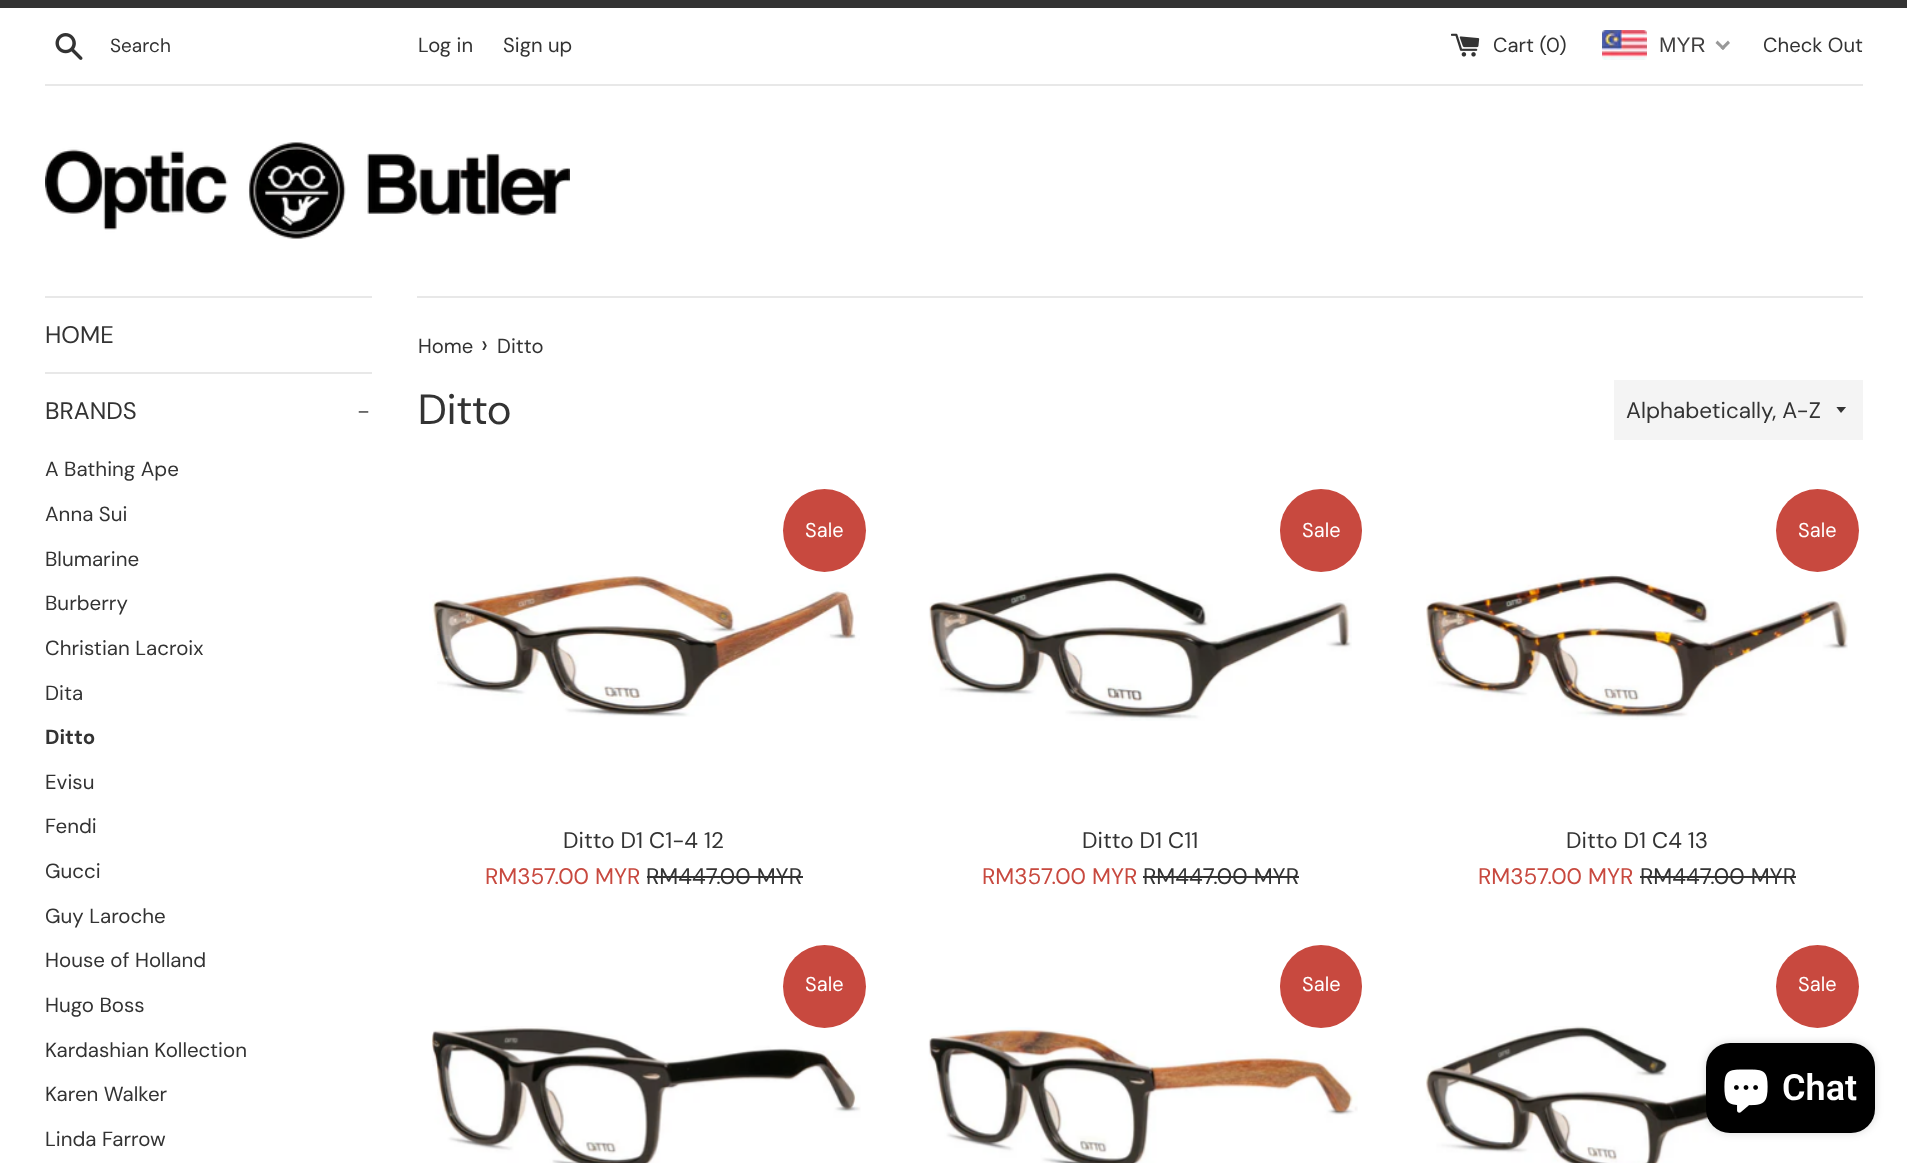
(async () => {
const canvas = document.querySelector("canvas")
canvas.width = 1907
canvas.height = 1163
const c = canvas.getContext("2d")
c.miterLimit = 4
c.fontKerning = "normal"
function T(s,x,y){c.fillText(s,x,y)}
function R(x,y,w,h){c.fillRect(x,y,w,h)}
function Q(x,y,w,h,r){c.beginPath();c.roundRect(x,y,w,h,r);c.fill()}
async function I(src,x,y,w,h){const img=new Image();img.src=src;await img.decode();c.drawImage(img,x,y,w,h)}
let path
c.fillStyle="#fff"
R(0,0,1907,1163)
c.fillStyle="#333"
R(0,0,1907,8)
await I("1.png",55,33,28,27)
c.font="19px DM Sans"
T("Search",110,52)
c.font="20.25px 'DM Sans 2'"
T("Log in",418,52)
T("Sign up",503,52)
await I("2.png",1451,33,29,24)
T("Cart (",1493,52)
T("0",1546,52)
T(")",1559,52)
await I("3.png",1602,30,45,30)
c.font="21px Liberation Sans"
c.fillStyle="#403f3f"
T("MYR",1659,52)
c.fillStyle="#999"
path = new Path2D("M1728 40.5l2 2.5l-7 7l-2.5-2z")
c.fill(path)
path = new Path2D("M1717.5 40.5l7.5 7.5l-2 2l-7.5-7z")
c.fill(path)
c.font="20.25px 'DM Sans 2'"
c.fillStyle="#333"
T("Check Out",1763,52)
c.fillStyle="#e8e8e8"
R(45,84,1818,2)
await I("4.png",45,142,525,97)
R(45,296,327,2)
R(45,372,327,2)
c.font="24px 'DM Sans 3'"
c.fillStyle="#333"
T("HOME",45,343)
T("BRANDS",45,419)
c.fillStyle="#5c5c5c"
T("-",357,419)
c.font="20.5px 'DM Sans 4'"
c.fillStyle="#333"
T("A Bathing Ape",45,476)
T("Anna Sui",45,521)
T("Blumarine",45,566)
T("Burberry",45,610)
T("Christian Lacroix",45,655)
T("Dita",45,700)
c.font="bold 20.5px DM Sans"
T("Ditto",45,744)
c.font="20.5px 'DM Sans 4'"
T("Evisu",45,789)
T("Fendi",45,833)
T("Gucci",45,878)
T("Guy Laroche",45,923)
T("House of Holland",45,967)
T("Hugo Boss",45,1012)
T("Kardashian Kollection",45,1057)
T("Karen Walker",45,1101)
T("Linda Farrow",45,1146)
c.fillStyle="#e8e8e8"
R(417,296,1446,2)
c.font="20.25px 'DM Sans 2'"
c.fillStyle="#333"
T("Home",418,353)
c.font="25px 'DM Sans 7'"
T("›",481,353)
c.font="20.25px 'DM Sans 2'"
T("Ditto",497,353)
c.font="42px 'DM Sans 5'"
T("Ditto",418,424)
c.fillStyle="#f4f4f4"
R(1614,380,249,60)
c.save()
c.beginPath()
c.rect(1836,407,12,7)
c.clip()
c.fillStyle="#333"
path = new Path2D("M1836 406.5l5 6.5l5.5-6.5z")
c.fill(path)
c.restore()
c.font="22.5px 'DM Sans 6'"
c.fillStyle="#333"
T("Alphabetically, A-Z",1626,418)
c.fillStyle="#c8493f"
c.beginPath()
c.arc(824.5,530.5,41.5,0,7)
c.fill()
c.font="20px 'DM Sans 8'"
c.fillStyle="#fff"
T("Sale",805,537)
c.font="22.5px 'DM Sans 6'"
c.fillStyle="#c8493f"
T("RM357.00 MYR",485,884)
c.fillStyle="#333"
T("RM447.00 MYR",646,884)
R(647,876,156,2)
await I("5.png",429,575,431,142)
T("Ditto D1 C1-4 12",563,848)
c.fillStyle="#c8493f"
Q(1280,489,82,83,41)
c.font="20px 'DM Sans 8'"
c.fillStyle="#fff"
T("Sale",1302,537)
c.font="22.5px 'DM Sans 6'"
c.fillStyle="#c8493f"
T("RM357.00 MYR",982,884)
c.fillStyle="#333"
T("RM447.00 MYR",1143,884)
R(1143,876,156,2)
await I("6.png",928,572,424,149)
T("Ditto D1 C11",1082,848)
c.fillStyle="#c8493f"
c.beginPath()
c.arc(1817.5,530.5,41.5,0,7)
c.fill()
c.font="20px 'DM Sans 8'"
c.fillStyle="#fff"
T("Sale",1798,537)
c.font="22.5px 'DM Sans 6'"
c.fillStyle="#c8493f"
T("RM357.00 MYR",1478,884)
c.fillStyle="#333"
T("RM447.00 MYR",1640,884)
R(1640,876,156,2)
await I("7.png",1426,574,422,146)
T("Ditto D1 C4 13",1566,848)
await I("8.png",431,1026,430,137)
c.fillStyle="#c8493f"
c.beginPath()
c.arc(824.5,986.5,41.5,0,7)
c.fill()
c.font="20px 'DM Sans 8'"
c.fillStyle="#fff"
T("Sale",805,991)
await I("9.png",928,1027,430,136)
c.fillStyle="#c8493f"
Q(1280,945,82,83,41)
c.fillStyle="#fff"
T("Sale",1302,991)
await I("10.png",1425,1026,423,137)
c.fillStyle="#c8493f"
c.beginPath()
c.arc(1817.5,986.5,41.5,0,7)
c.fill()
c.fillStyle="#fff"
T("Sale",1798,991)
c.fillStyle="#00000026"
c.filter="blur(4px)"
c.beginPath()
c.roundRect(1706,1043,169,90,24)
c.fill()
c.filter="none"
c.fillStyle="#000"
Q(1706,1043,169,90,24)
await I("11.png",1724,1069,44,44)
c.font="600 36px Roboto"
c.fillStyle="#fff"
T("Chat",1782,1100)
})()
